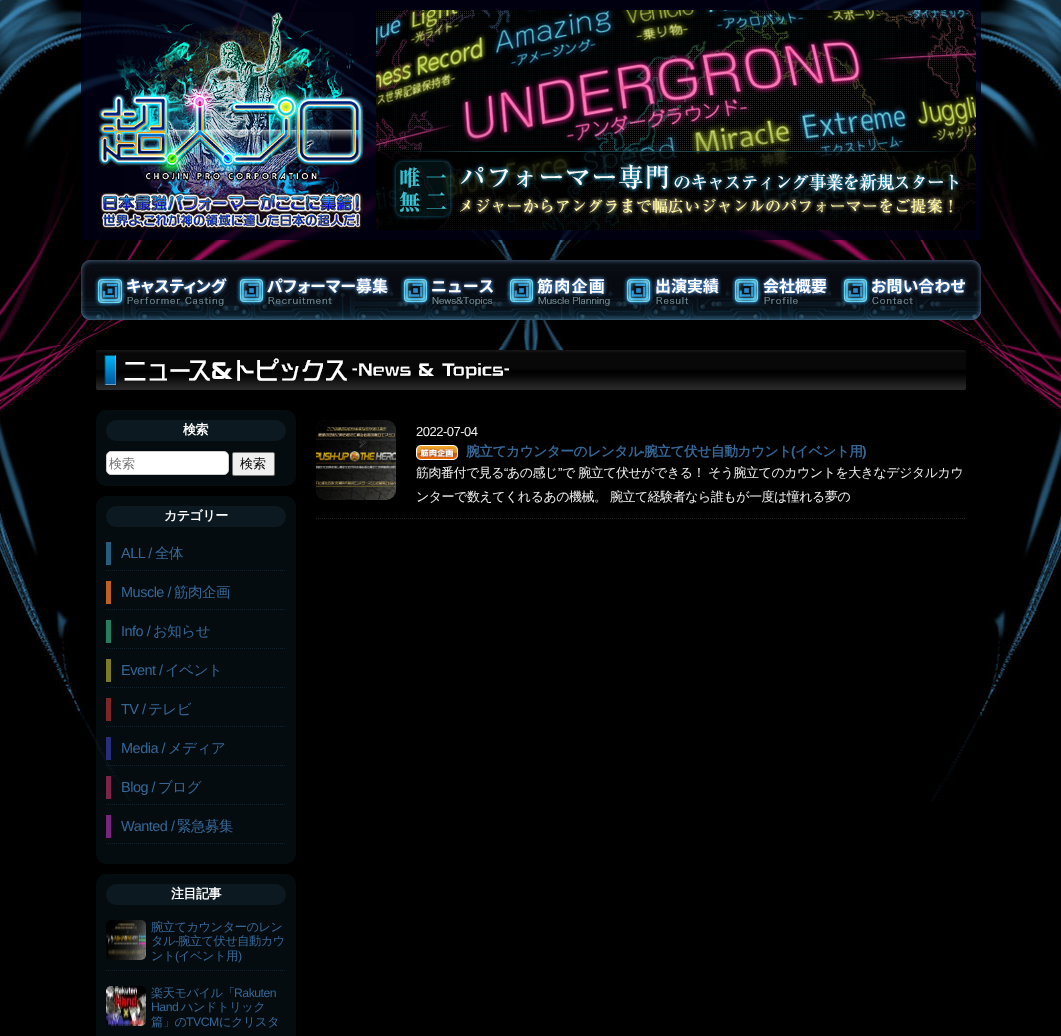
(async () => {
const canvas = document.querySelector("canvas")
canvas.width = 1061
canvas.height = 1036
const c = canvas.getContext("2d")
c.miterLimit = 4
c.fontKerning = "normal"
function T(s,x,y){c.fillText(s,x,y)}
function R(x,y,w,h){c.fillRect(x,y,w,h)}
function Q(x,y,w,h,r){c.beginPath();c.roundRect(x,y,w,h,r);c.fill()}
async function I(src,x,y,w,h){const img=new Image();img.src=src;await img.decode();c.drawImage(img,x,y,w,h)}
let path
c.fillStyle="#000"
R(0,0,1061,1036)
await I("1.png",0,0,1061,801)
c.fillStyle="#000015cc"
R(81,0,900,240)
await I("2.png",98,12,266,218)
await I("3.png",376,10,600,220)
await I("4.png",81,260,900,60)
await I("5.png",96,350,870,40)
await I("6.png",96,410,200,76)
c.fillStyle="#0d1920"
Q(106,420,180,21,10.5)
c.letterSpacing="-0.5px"
c.font="bold 13px WenQuanYi Zen Hei"
c.fillStyle="#fff"
T("検索",183,434)
c.beginPath()
c.roundRect(106.5,451.5,122,23,4.5)
c.fill()
c.strokeStyle="#ccc"
c.stroke()
c.letterSpacing="0px"
c.font="500 13px WenQuanYi Zen Hei"
c.fillStyle="#757575"
T("検索",109,468)
c.fillStyle="#efefef"
c.beginPath()
c.roundRect(232.5,452.5,42,23,1.5)
c.fill()
c.strokeStyle="#767676"
c.stroke()
c.fillStyle="#000"
T("検索",240,468)
await I("7.png",96,496,200,368)
c.fillStyle="#0d1920"
Q(106,506,180,21,10.5)
c.letterSpacing="-0.5px"
c.font="bold 13px WenQuanYi Zen Hei"
c.fillStyle="#fff"
T("カテゴリー",164,520)
path = new Path2D("M106 570.5h180")
c.strokeStyle="#11222c"
c.setLineDash([1,1])
c.stroke(path)
c.fillStyle="#255e7e"
R(106,542,5,23)
c.font="14.5px Liberation Sans"
c.fillStyle="#346796"
T("ALL /",121,558)
c.font="500 14.5px WenQuanYi Zen Hei"
T("全体",155,558)
path = new Path2D("M106 609.5h180")
c.stroke(path)
c.fillStyle="#be6021"
R(106,581,5,23)
c.font="14.5px Liberation Sans"
c.fillStyle="#346796"
T("Muscle /",121,597)
c.font="500 14.5px WenQuanYi Zen Hei"
T("筋肉企画",174,597)
path = new Path2D("M106 648.5h180")
c.stroke(path)
c.fillStyle="#257e5e"
R(106,620,5,23)
c.font="14.5px Liberation Sans"
c.fillStyle="#346796"
T("Info /",121,636)
c.font="500 14.5px WenQuanYi Zen Hei"
T("お知らせ",153,636)
path = new Path2D("M106 687.5h180")
c.stroke(path)
c.fillStyle="#7e7b25"
R(106,659,5,23)
c.font="14.5px Liberation Sans"
c.fillStyle="#346796"
T("Event /",121,675)
c.font="500 14.5px WenQuanYi Zen Hei"
T("イベント",165,675)
path = new Path2D("M106 726.5h180")
c.stroke(path)
c.fillStyle="#7e2525"
R(106,698,5,23)
c.font="14.5px Liberation Sans"
c.fillStyle="#346796"
T("TV /",121,714)
c.font="500 14.5px WenQuanYi Zen Hei"
T("テレビ",148,714)
path = new Path2D("M106 765.5h180")
c.stroke(path)
c.fillStyle="#252f7e"
R(106,737,5,23)
c.font="14.5px Liberation Sans"
c.fillStyle="#346796"
T("Media /",121,753)
c.font="500 14.5px WenQuanYi Zen Hei"
T("メディア",168,753)
path = new Path2D("M106 804.5h180")
c.stroke(path)
c.fillStyle="#7e2547"
R(106,776,5,23)
c.font="14.5px Liberation Sans"
c.fillStyle="#346796"
T("Blog /",121,792)
c.font="500 14.5px WenQuanYi Zen Hei"
T("ブログ",158,792)
path = new Path2D("M106 843.5h180")
c.stroke(path)
c.fillStyle="#79257e"
R(106,815,5,23)
c.font="14.5px Liberation Sans"
c.fillStyle="#346796"
T("Wanted /",121,831)
c.font="500 14.5px WenQuanYi Zen Hei"
T("緊急募集",177,831)
await I("8.png",96,874,200,162)
c.fillStyle="#0d1920"
Q(106,884,180,21,10.5)
c.font="bold 13px WenQuanYi Zen Hei"
c.fillStyle="#fff"
T("注目記事",171,898)
path = new Path2D("M106 970.5h180")
c.stroke(path)
await I("9.png",106,920,40,40)
c.font="500 12.25px WenQuanYi Zen Hei"
c.fillStyle="#346796"
T("腕立てカウンターのレン",151,931)
T("タル",151,945)
c.font="12.25px Liberation Sans"
T("-",175,945)
c.font="500 12.25px WenQuanYi Zen Hei"
T("腕立て伏せ自動カウ",178,945)
T("ント",151,960)
c.font="12.25px Liberation Sans"
T("(",175,960)
c.font="500 12.25px WenQuanYi Zen Hei"
T("イベント用",178,960)
c.font="12.25px Liberation Sans"
T(")",238,960)
await I("10.png",106,986,40,40)
c.font="500 12.25px WenQuanYi Zen Hei"
T("楽天モバイル「",151,997)
c.font="12.25px Liberation Sans"
T("Rakuten",234,997)
T("Hand",151,1011)
c.font="500 12.25px WenQuanYi Zen Hei"
T("ハンドトリック",181,1011)
T("篇」の",151,1026)
c.font="12.25px Liberation Sans"
T("TVCM",186,1026)
c.font="500 12.25px WenQuanYi Zen Hei"
T("にクリスタ",219,1026)
path = new Path2D("M316 518.5h650")
c.strokeStyle="#222"
c.stroke(path)
c.fillStyle="#212121"
Q(316,420,80,80,10)
await I("11.png",316,420,80,80)
c.font="13px Liberation Sans"
c.fillStyle="#eee"
T("2022-07-04",416,436)
await I("12.png",416,445,42,15)
c.font="bold 13.75px WenQuanYi Zen Hei"
c.fillStyle="#346796"
T("腕立てカウンターのレンタル",466,456)
c.font="bold 13.75px Liberation Sans"
T("-",640,456)
c.font="bold 13.75px WenQuanYi Zen Hei"
T("腕立て伏せ自動カウント",644,456)
c.font="bold 13.75px Liberation Sans"
T("(",791,456)
c.font="bold 13.75px WenQuanYi Zen Hei"
T("イベント用",795,456)
c.font="bold 13.75px Liberation Sans"
T(")",862,456)
c.font="500 13px WenQuanYi Zen Hei"
c.fillStyle="#eee"
T("筋肉番付で見る",416,477)
c.font="13px Liberation Sans"
T("“",504,477)
c.font="500 13px WenQuanYi Zen Hei"
T("あの感じ",507,477)
c.font="13px Liberation Sans"
T("”",558,477)
c.font="500 13px WenQuanYi Zen Hei"
T("で 腕立て伏せができる！",562,477)
T("そう腕立てのカウントを大きなデジタルカウ",708,477)
T("ンターで数えてくれるあの機械。 腕立て経験者なら誰もが一度は憧れる夢の",416,501)
})()
